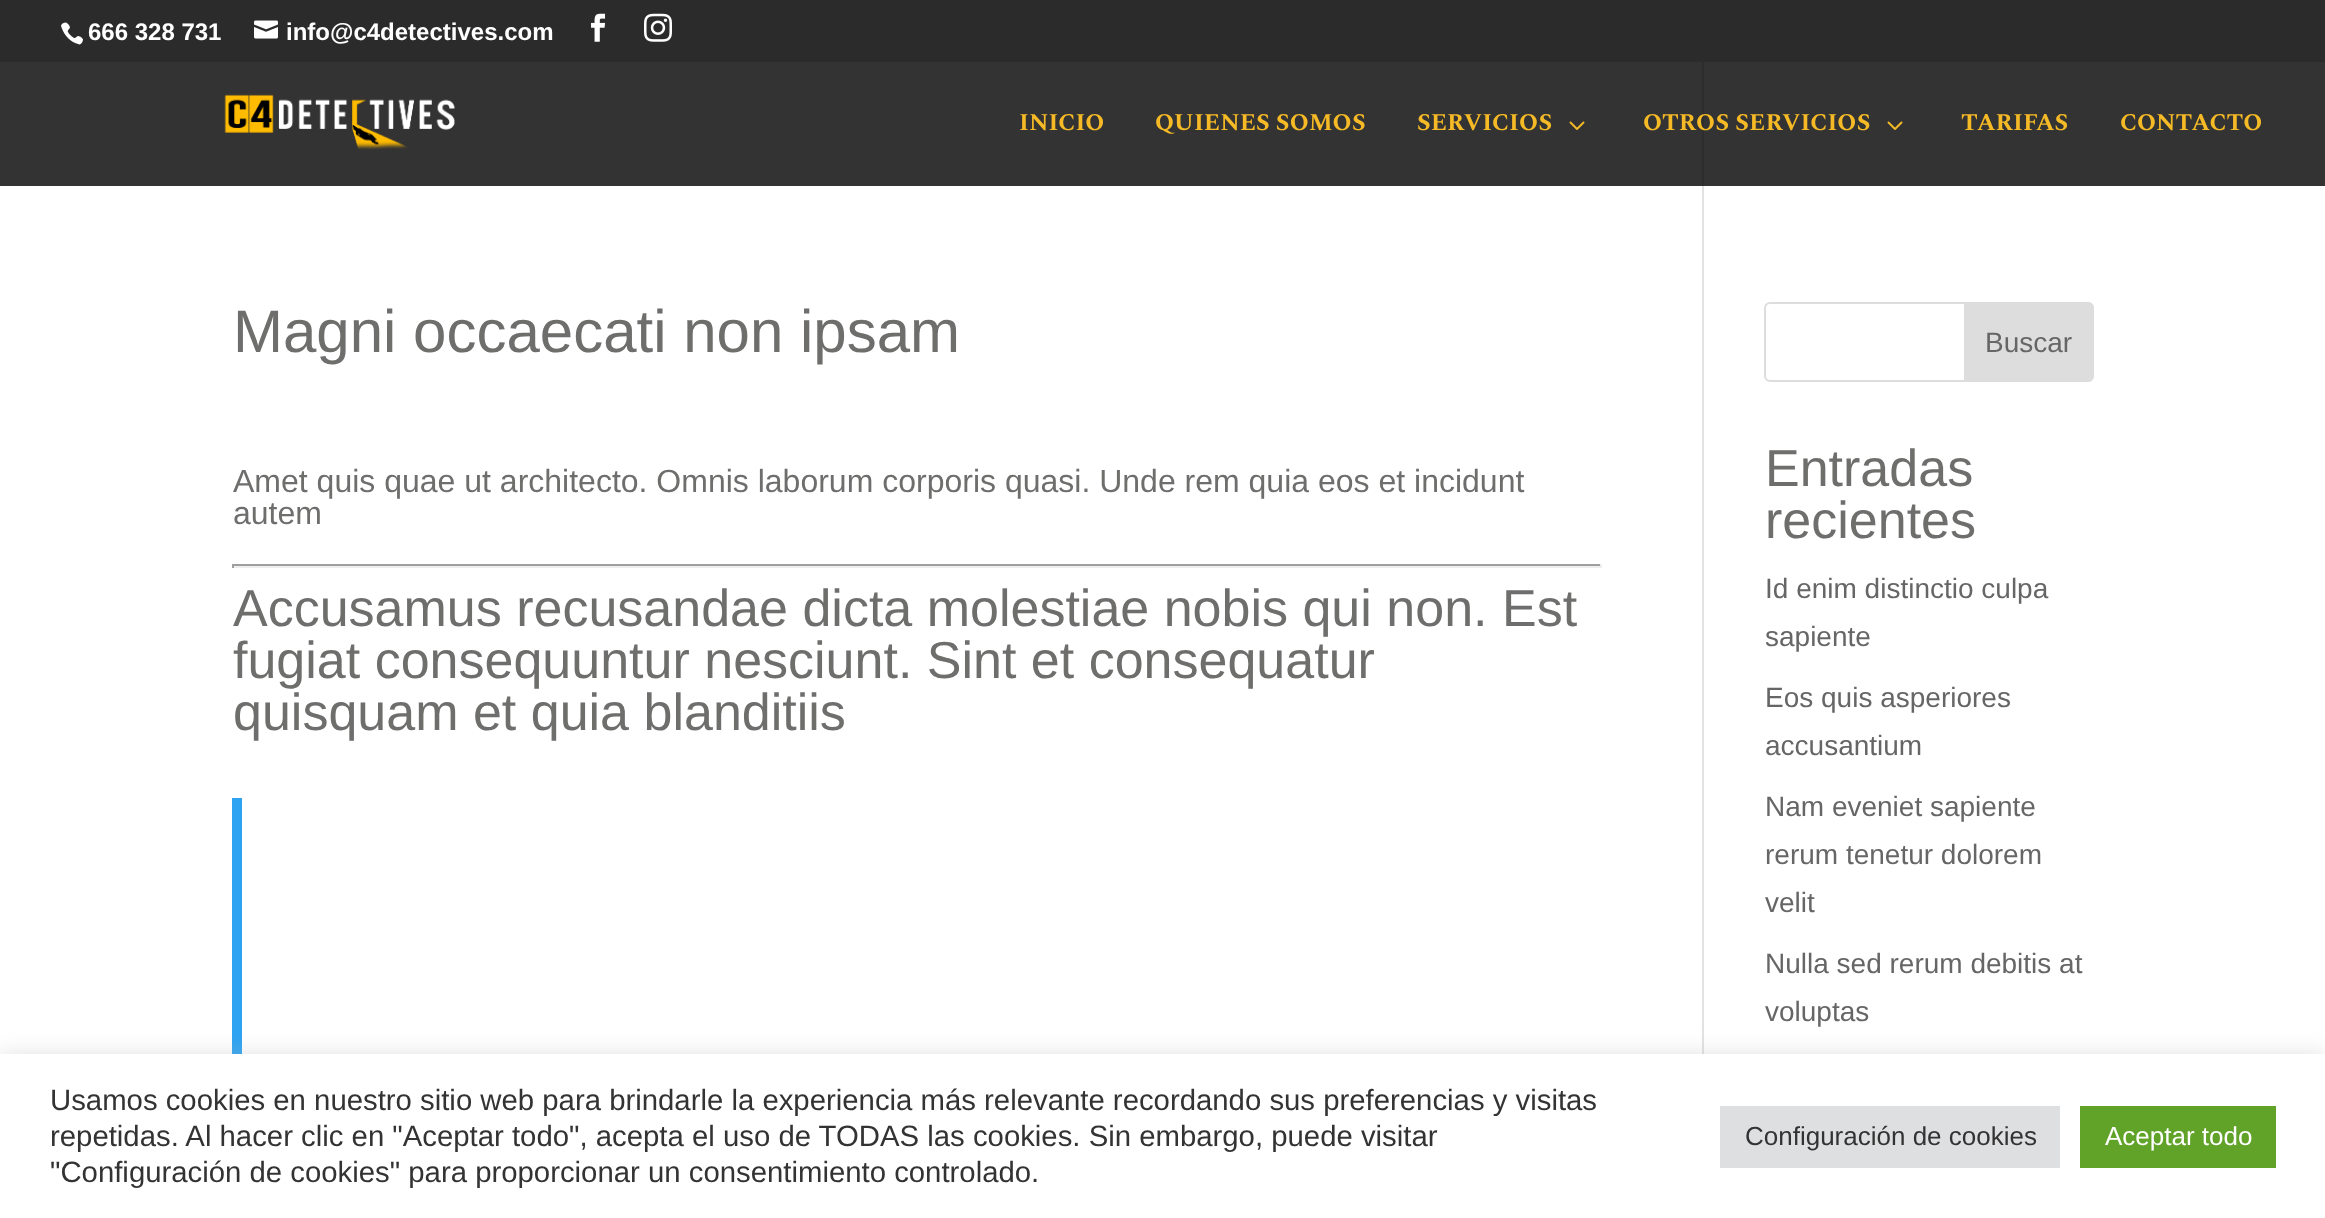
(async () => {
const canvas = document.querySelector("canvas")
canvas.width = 2325
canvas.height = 1218
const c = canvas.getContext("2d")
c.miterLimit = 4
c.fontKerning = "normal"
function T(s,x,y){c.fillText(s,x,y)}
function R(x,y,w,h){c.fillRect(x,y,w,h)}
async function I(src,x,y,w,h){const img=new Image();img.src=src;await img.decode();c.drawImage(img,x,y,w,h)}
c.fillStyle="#fff"
R(0,0,2325,1218)
c.fillStyle="#333"
R(0,62,2325,124)
c.fillStyle="#2b2b2b"
R(0,0,2325,62)
await I("1.png",61,22,22,23)
c.font="bold 24px Liberation Sans"
c.fillStyle="#fff"
T("666 328 731",88,40)
await I("2.png",254,20,24,19)
T("info@c4detectives.com",286,40)
await I("3.png",591,13,15,29)
await I("4.png",644,13,28,29)
await I("5.png",224,94,231,56)
c.font="bold 24px Spectral"
c.fillStyle="#f6ba26"
T("INICIO",1019,130)
T("QUIENES SOMOS",1155,130)
T("SERVICIOS",1417,130)
await I("6.png",1569,121,16,9)
c.fillStyle="#2d2d2d"
R(1702,62,2,124)
c.fillStyle="#f6ba26"
T("OTROS SERVICIOS",1643,130)
await I("6.png",1887,121,16,9)
T("TARIFAS",1961,130)
T("CONTACTO",2120,130)
c.fillStyle="#e2e2e2"
R(1702,186,2,868)
c.font="60px Liberation Sans"
c.fillStyle="#6e6e6d"
T("Magni occaecati non ipsam",233,352)
c.font="32px Liberation Sans"
T("Amet quis quae ut architecto. Omnis laborum corporis quasi. Unde rem quia eos et incidunt",233,492)
T("autem",233,524)
c.fillStyle="#9f9f9f"
R(232,564,1370,2)
c.fillStyle="#eee"
R(1600,564,2,4)
R(232,566,1370,2)
c.fillStyle="#9f9f9f"
R(232,564,2,4)
c.font="52px Liberation Sans"
c.fillStyle="#6e6e6d"
T("Accusamus recusandae dicta molestiae nobis qui non. Est",233,626)
T("fugiat consequuntur nesciunt. Sint et consequatur",233,678)
T("quisquam et quia blanditiis",233,730)
c.fillStyle="#2ea3f2"
R(232,798,10,256)
c.beginPath()
c.roundRect(1765,303,328,78,5)
c.strokeStyle="#ddd"
c.lineWidth=2
c.stroke()
c.fillStyle="#ddd"
c.beginPath()
c.roundRect(1965,303,128,78,[0,5,5,0])
c.fill()
c.stroke()
c.font="28px Liberation Sans"
c.fillStyle="#666"
T("Buscar",1985,352)
c.font="52px Liberation Sans"
c.fillStyle="#6e6e6d"
T("Entradas",1765,486)
T("recientes",1765,538)
c.font="28px Liberation Sans"
c.fillStyle="#666"
T("Id enim distinctio culpa",1765,598)
T("sapiente",1765,646)
T("Eos quis asperiores",1765,707)
T("accusantium",1765,755)
T("Nam eveniet sapiente",1765,816)
T("rerum tenetur dolorem",1765,864)
T("velit",1765,912)
T("Nulla sed rerum debitis at",1765,973)
T("voluptas",1765,1021)
c.fillStyle="#acabab4d"
c.filter="blur(10px)"
c.beginPath()
c.rect(0,1052,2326,164)
c.fill()
c.filter="none"
c.fillStyle="#fff"
R(0,1054,2325,164)
c.font="29.33px Liberation Sans"
c.fillStyle="#333"
T("Usamos cookies en nuestro sitio web para brindarle la experiencia más relevante recordando sus preferencias y visitas",50,1110)
T("repetidas. Al hacer clic en \"Aceptar todo\", acepta el uso de TODAS las cookies. Sin embargo, puede visitar",50,1146)
T("\"Configuración de cookies\" para proporcionar un consentimiento controlado.",50,1182)
c.fillStyle="#dedfe0"
R(1720,1106,340,62)
c.font="26px Liberation Sans"
c.fillStyle="#333"
T("Configuración de cookies",1745,1145)
c.fillStyle="#61a229"
R(2080,1106,196,62)
c.fillStyle="#fff"
T("Aceptar todo",2105,1145)
})()
